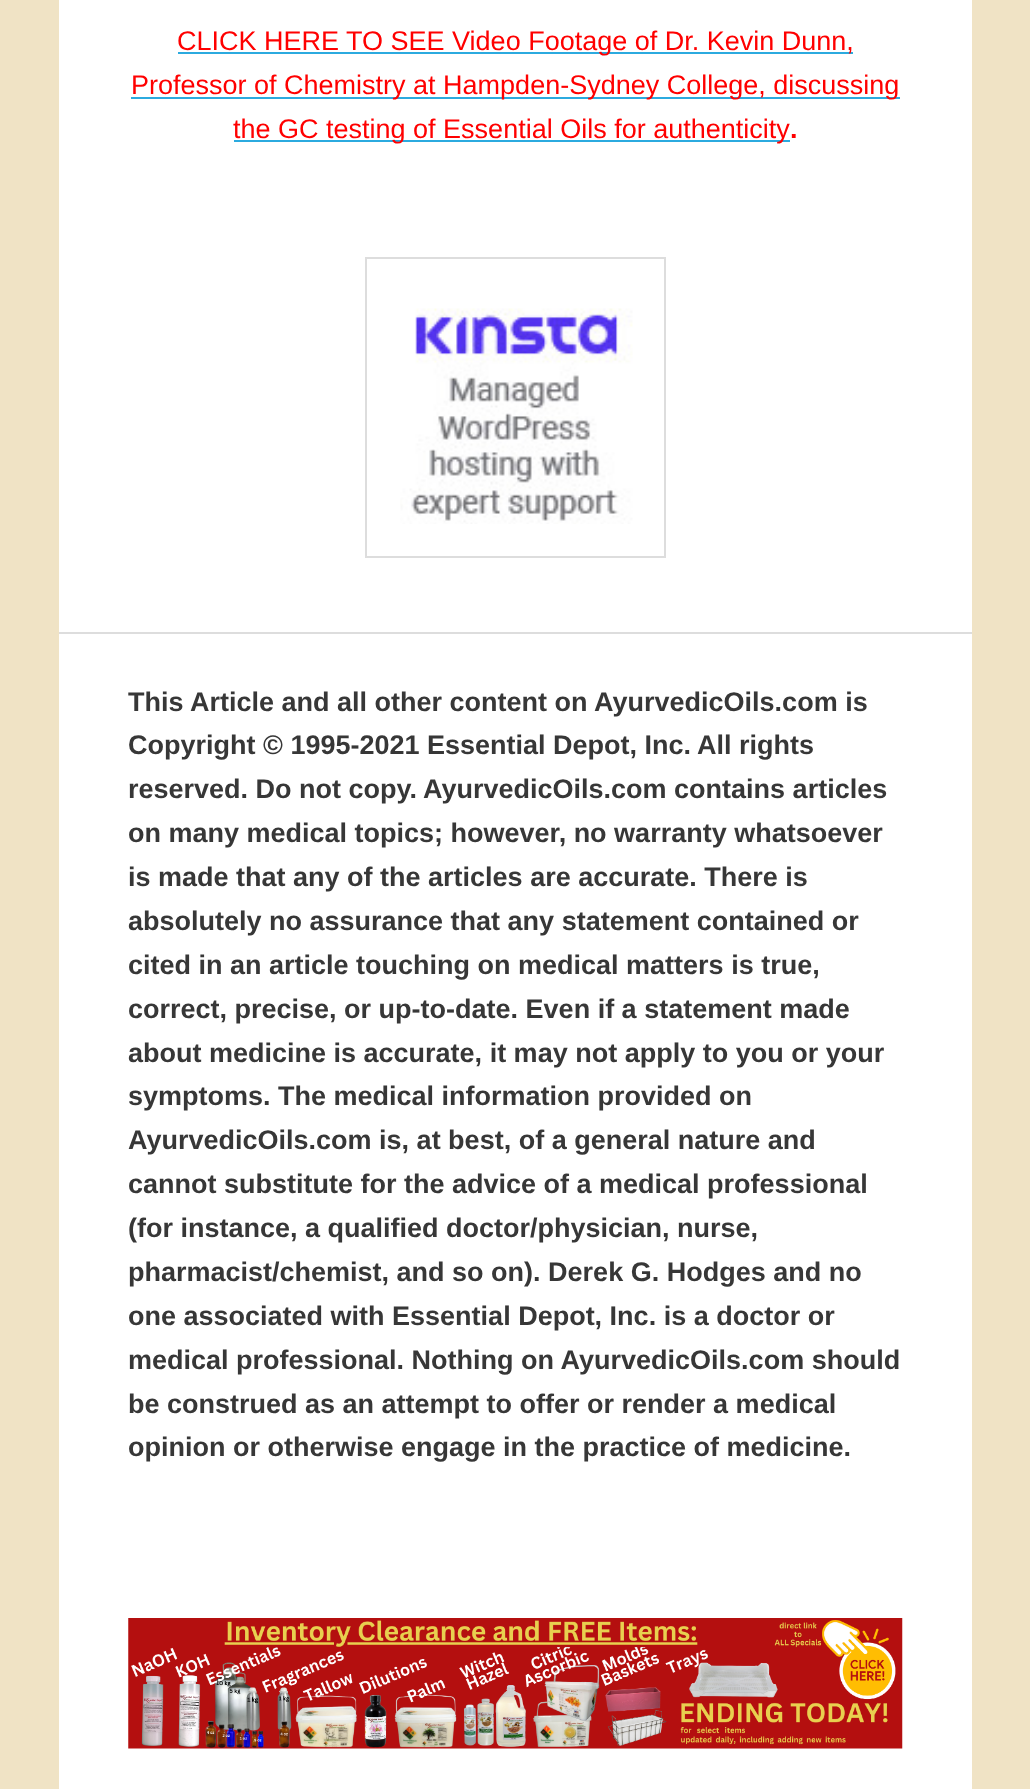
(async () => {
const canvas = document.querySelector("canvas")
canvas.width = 1030
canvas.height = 1789
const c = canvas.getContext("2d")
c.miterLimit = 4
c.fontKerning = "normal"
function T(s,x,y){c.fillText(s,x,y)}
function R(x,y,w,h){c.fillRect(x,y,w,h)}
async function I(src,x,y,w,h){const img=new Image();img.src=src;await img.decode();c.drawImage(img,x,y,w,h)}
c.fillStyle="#f0e3c5"
R(0,0,1030,1789)
c.fillStyle="#fff"
R(59,0,913,1789)
c.fillStyle="#2baadf"
R(178,52,675,2)
c.font="27px Liberation Sans"
c.fillStyle="#f00"
T("CLICK HERE TO SEE Video Footage of Dr. Kevin Dunn,",177,50)
c.fillStyle="#2baadf"
R(131,97,769,2)
c.fillStyle="#f00"
T("Professor of Chemistry at Hampden-Sydney College, discussing",131,94)
c.fillStyle="#2baadf"
R(234,140,556,2)
c.fillStyle="#f00"
T("the GC testing of Essential Oils for authenticity",233,138)
c.font="bold 27px Liberation Sans"
T(".",790,138)
c.strokeStyle="#ddd"
c.lineWidth=2
c.strokeRect(366,258,299,299)
await I("1.png",400,308,233,216)
c.fillStyle="#ddd"
R(59,632,913,2)
c.fillStyle="#373737"
T("This Article and all other content on AyurvedicOils.com is",128,711)
T("Copyright © 1995-2021 Essential Depot, Inc.",128,754)
T("All rights",697,754)
T("reserved. Do not copy.",128,798)
T("AyurvedicOils.com contains articles",423,798)
T("on many medical topics; however, no warranty whatsoever",128,842)
T("is made that any of the articles are accurate. There is",128,886)
T("absolutely no assurance that any statement contained or",128,930)
T("cited in an article touching on medical matters is true,",128,974)
T("correct, precise, or up-to-date. Even if a statement made",128,1018)
T("about medicine is accurate, it may not apply to you or your",128,1062)
T("symptoms. The medical information provided on",128,1105)
T("AyurvedicOils.com is, at best, of a general nature and",128,1149)
T("cannot substitute for the advice of a medical professional",128,1193)
T("(for instance, a qualified doctor/physician, nurse,",128,1237)
T("pharmacist/chemist, and so on). Derek G. Hodges and no",128,1281)
T("one associated with Essential Depot, Inc. is a doctor or",128,1325)
T("medical professional. Nothing on AyurvedicOils.com should",128,1369)
T("be construed as an attempt to offer or render a medical",128,1413)
T("opinion or otherwise engage in the practice of medicine.",128,1456)
await I("2.png",128,1618,775,131)
})()
